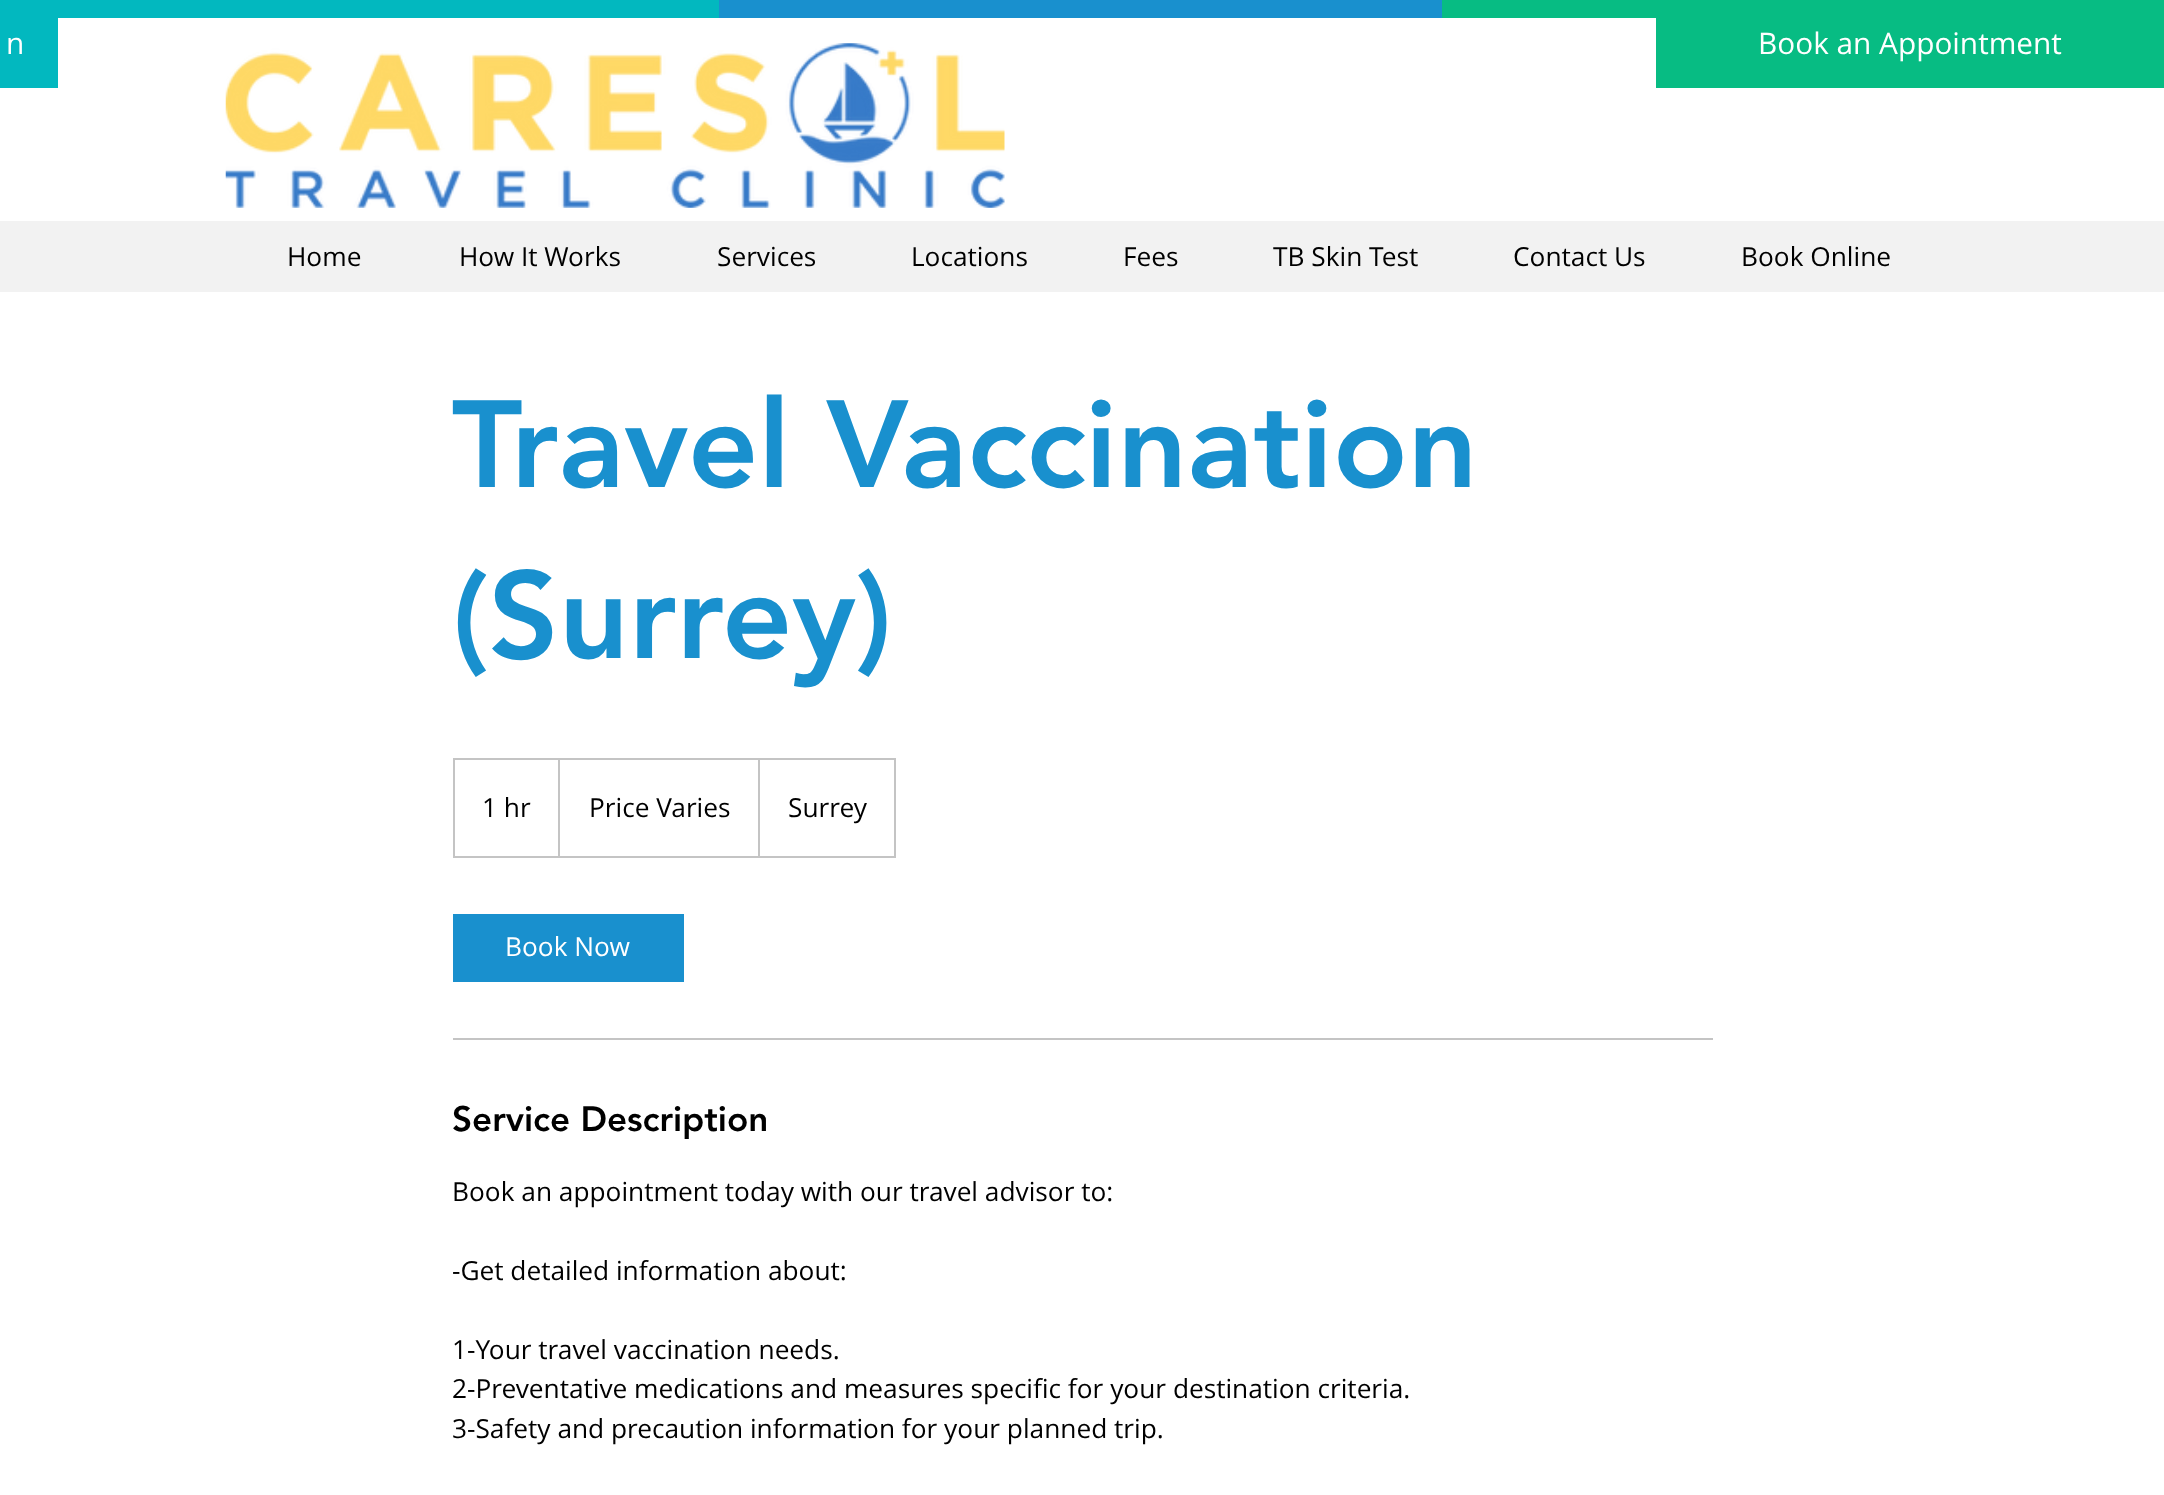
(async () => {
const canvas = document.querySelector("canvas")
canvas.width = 2164
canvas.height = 1495
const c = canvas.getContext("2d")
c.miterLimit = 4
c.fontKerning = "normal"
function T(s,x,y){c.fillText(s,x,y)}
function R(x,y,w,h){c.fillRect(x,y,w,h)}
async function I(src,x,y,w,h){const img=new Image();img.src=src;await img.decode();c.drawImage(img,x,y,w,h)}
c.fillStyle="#fff"
R(0,0,2164,1495)
c.fillStyle="#02b8bf"
R(0,0,719,18)
c.fillStyle="#1990ce"
R(719,0,723,18)
c.fillStyle="#07bc83"
R(1442,0,214,18)
c.fillStyle="#02b8bf"
R(0,18,58,70)
c.font="29.75px Open Sans"
c.fillStyle="#fff"
T("n",6,54)
await I("1.png",225,43,780,165)
c.fillStyle="#f2f2f2"
R(0,221,2164,71)
c.font="26.25px Open Sans"
c.fillStyle="#000"
T("Home",287,266)
T("How It Works",459,266)
T("Services",717,266)
T("Locations",911,266)
T("Fees",1123,266)
T("TB Skin Test",1273,266)
T("Contact Us",1513,266)
T("Book Online",1741,266)
c.fillStyle="#07bc83"
R(1656,0,508,88)
c.font="29.75px Open Sans"
c.fillStyle="#fff"
T("Book an Appointment",1758,54)
c.font="900 122.5px 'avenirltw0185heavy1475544'"
c.fillStyle="#1990ce"
T("Travel Vaccination",452,487)
T("(Surrey)",452,658)
c.strokeStyle="#c4c4c4"
c.lineWidth=2
c.strokeRect(454,759,441,98)
c.font="26.25px Open Sans"
c.fillStyle="#000"
T("1 hr",482,817)
c.fillStyle="#c4c4c4"
R(558,760,2,96)
c.fillStyle="#000"
T("Price Varies",589,817)
c.fillStyle="#c4c4c4"
R(758,760,2,96)
c.fillStyle="#000"
T("Surrey",788,817)
c.fillStyle="#1990ce"
R(453,914,231,68)
c.fillStyle="#fff"
T("Book Now",505,956)
c.fillStyle="#c4c4c4"
R(453,1038,1260,2)
c.font="900 35px 'avenirltw0185heavy1475544'"
c.fillStyle="#000"
T("Service Description",452,1131)
c.font="26.25px Open Sans"
T("Book an appointment today with our travel advisor to:",452,1201)
T("-Get detailed information about:",452,1280)
T("1-Your travel vaccination needs.",452,1359)
T("2-Preventative medications and measures specific for your destination criteria.",452,1398)
T("3-Safety and precaution information for your planned trip.",452,1438)
})()
